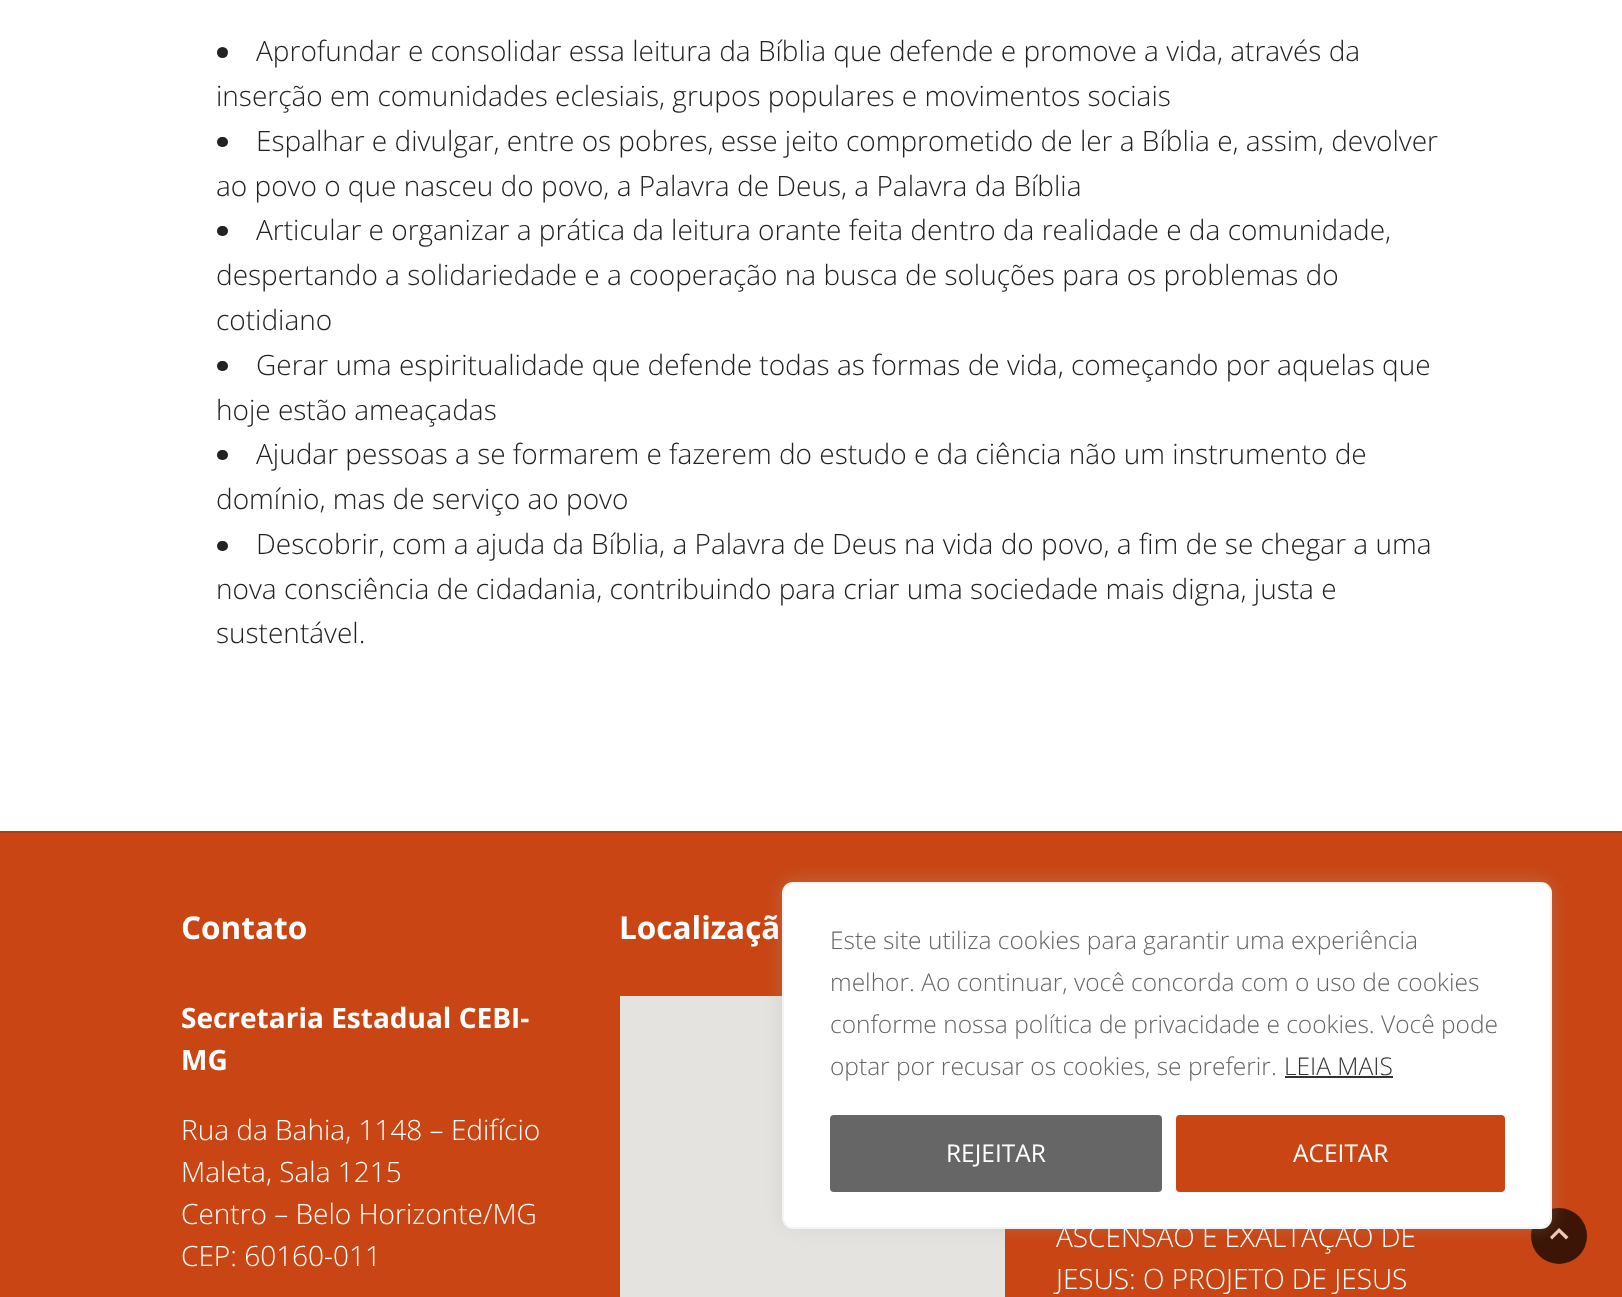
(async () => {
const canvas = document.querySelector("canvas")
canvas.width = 1622
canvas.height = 1297
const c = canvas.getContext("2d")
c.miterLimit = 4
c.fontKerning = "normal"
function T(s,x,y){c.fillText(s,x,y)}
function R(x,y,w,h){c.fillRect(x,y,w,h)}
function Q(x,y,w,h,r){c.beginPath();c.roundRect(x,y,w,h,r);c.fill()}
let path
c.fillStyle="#fff"
R(0,0,1622,1297)
c.fillStyle="#222"
c.beginPath()
c.arc(222.5,52.5,5.5,0,7)
c.fill()
c.font="300 28px Open Sans"
T("Aprofundar e consolidar essa leitura da Bíblia que defende e promove a vida, através da",256,61)
T("inserção em comunidades eclesiais, grupos populares e movimentos sociais",216,106)
Q(217,137,11,10,5)
T("Espalhar e divulgar, entre os pobres, esse jeito comprometido de ler a Bíblia e, assim, devolver",256,151)
T("ao povo o que nasceu do povo, a Palavra de Deus, a Palavra da Bíblia",216,196)
Q(217,226,11,10,5)
T("Articular e organizar a prática da leitura orante feita dentro da realidade e da comunidade,",256,240)
T("despertando a solidariedade e a cooperação na busca de soluções para os problemas do",216,285)
T("cotidiano",216,330)
Q(217,361,11,10,5)
T("Gerar uma espiritualidade que defende todas as formas de vida, começando por aquelas que",256,375)
T("hoje estão ameaçadas",216,420)
Q(217,450,11,10,5)
T("Ajudar pessoas a se formarem e fazerem do estudo e da ciência não um instrumento de",256,464)
T("domínio, mas de serviço ao povo",216,509)
Q(217,541,11,10,5)
T("Descobrir, com a ajuda da Bíblia, a Palavra de Deus na vida do povo, a fim de se chegar a uma",256,554)
T("nova consciência de cidadania, contribuindo para criar uma sociedade mais digna, justa e",216,599)
T("sustentável.",216,643)
c.fillStyle="#c94513"
R(0,833,1622,464)
c.fillStyle="#b33d10"
R(0,831,1622,2)
c.font="bold 31.5px Open Sans"
c.fillStyle="#fff"
T("Contato",181,939)
c.font="bold 28px Open Sans"
T("Secretaria Estadual CEBI-",181,1028)
T("MG",181,1070)
c.font="300 28px Open Sans"
T("Rua da Bahia, 1148 – Edifício",181,1140)
T("Maleta, Sala 1215",181,1182)
T("Centro – Belo Horizonte/MG",181,1224)
T("CEP: 60160-011",181,1266)
c.font="bold 31.5px Open Sans"
T("Localizaçã",619,939)
c.fillStyle="#e5e3df"
R(620,996,385,301)
c.font="300 28px Open Sans"
c.fillStyle="#fff"
T("ASCENSÃO E EXALTAÇÃO DE",1056,1247)
T("JESUS: O PROJETO DE JESUS",1056,1289)
c.fillStyle="#3c1506"
c.beginPath()
c.arc(1559,1236,28,0,7)
c.fill()
c.fillStyle="#efc7b8"
path = new Path2D("M1566 1239.5l-7-7l-7 7l-2-2.5l9-9l9.5 9z")
c.fill(path)
c.fillStyle="#acabab4d"
c.filter="blur(9px)"
c.beginPath()
c.roundRect(782,880,770,347,11)
c.fill()
c.filter="none"
c.fillStyle="#fff"
c.beginPath()
c.roundRect(783,883,768,345,10)
c.fill()
c.strokeStyle="#f4f4f4"
c.lineWidth=2
c.stroke()
c.font="300 24.5px Open Sans"
c.fillStyle="#666"
T("Este site utiliza cookies para garantir uma experiência",830,949)
T("melhor. Ao continuar, você concorda com o uso de cookies",830,991)
T("conforme nossa política de privacidade e cookies. Você pode",830,1033)
T("optar por recusar os cookies, se preferir.",830,1075)
c.fillStyle="#333"
T("LEIA MAIS",1284,1075)
R(1285,1076,108,2)
c.fillStyle="#666"
c.beginPath()
c.roundRect(832,1117,328,73,2)
c.fill()
c.strokeStyle="#666"
c.lineWidth=4
c.stroke()
c.font="24.5px Open Sans"
c.fillStyle="#fff"
T("REJEITAR",946,1162)
c.fillStyle="#c94513"
c.beginPath()
c.roundRect(1178,1117,325,73,2)
c.fill()
c.strokeStyle="#c94513"
c.stroke()
c.fillStyle="#fff"
T("ACEITAR",1293,1162)
})()
